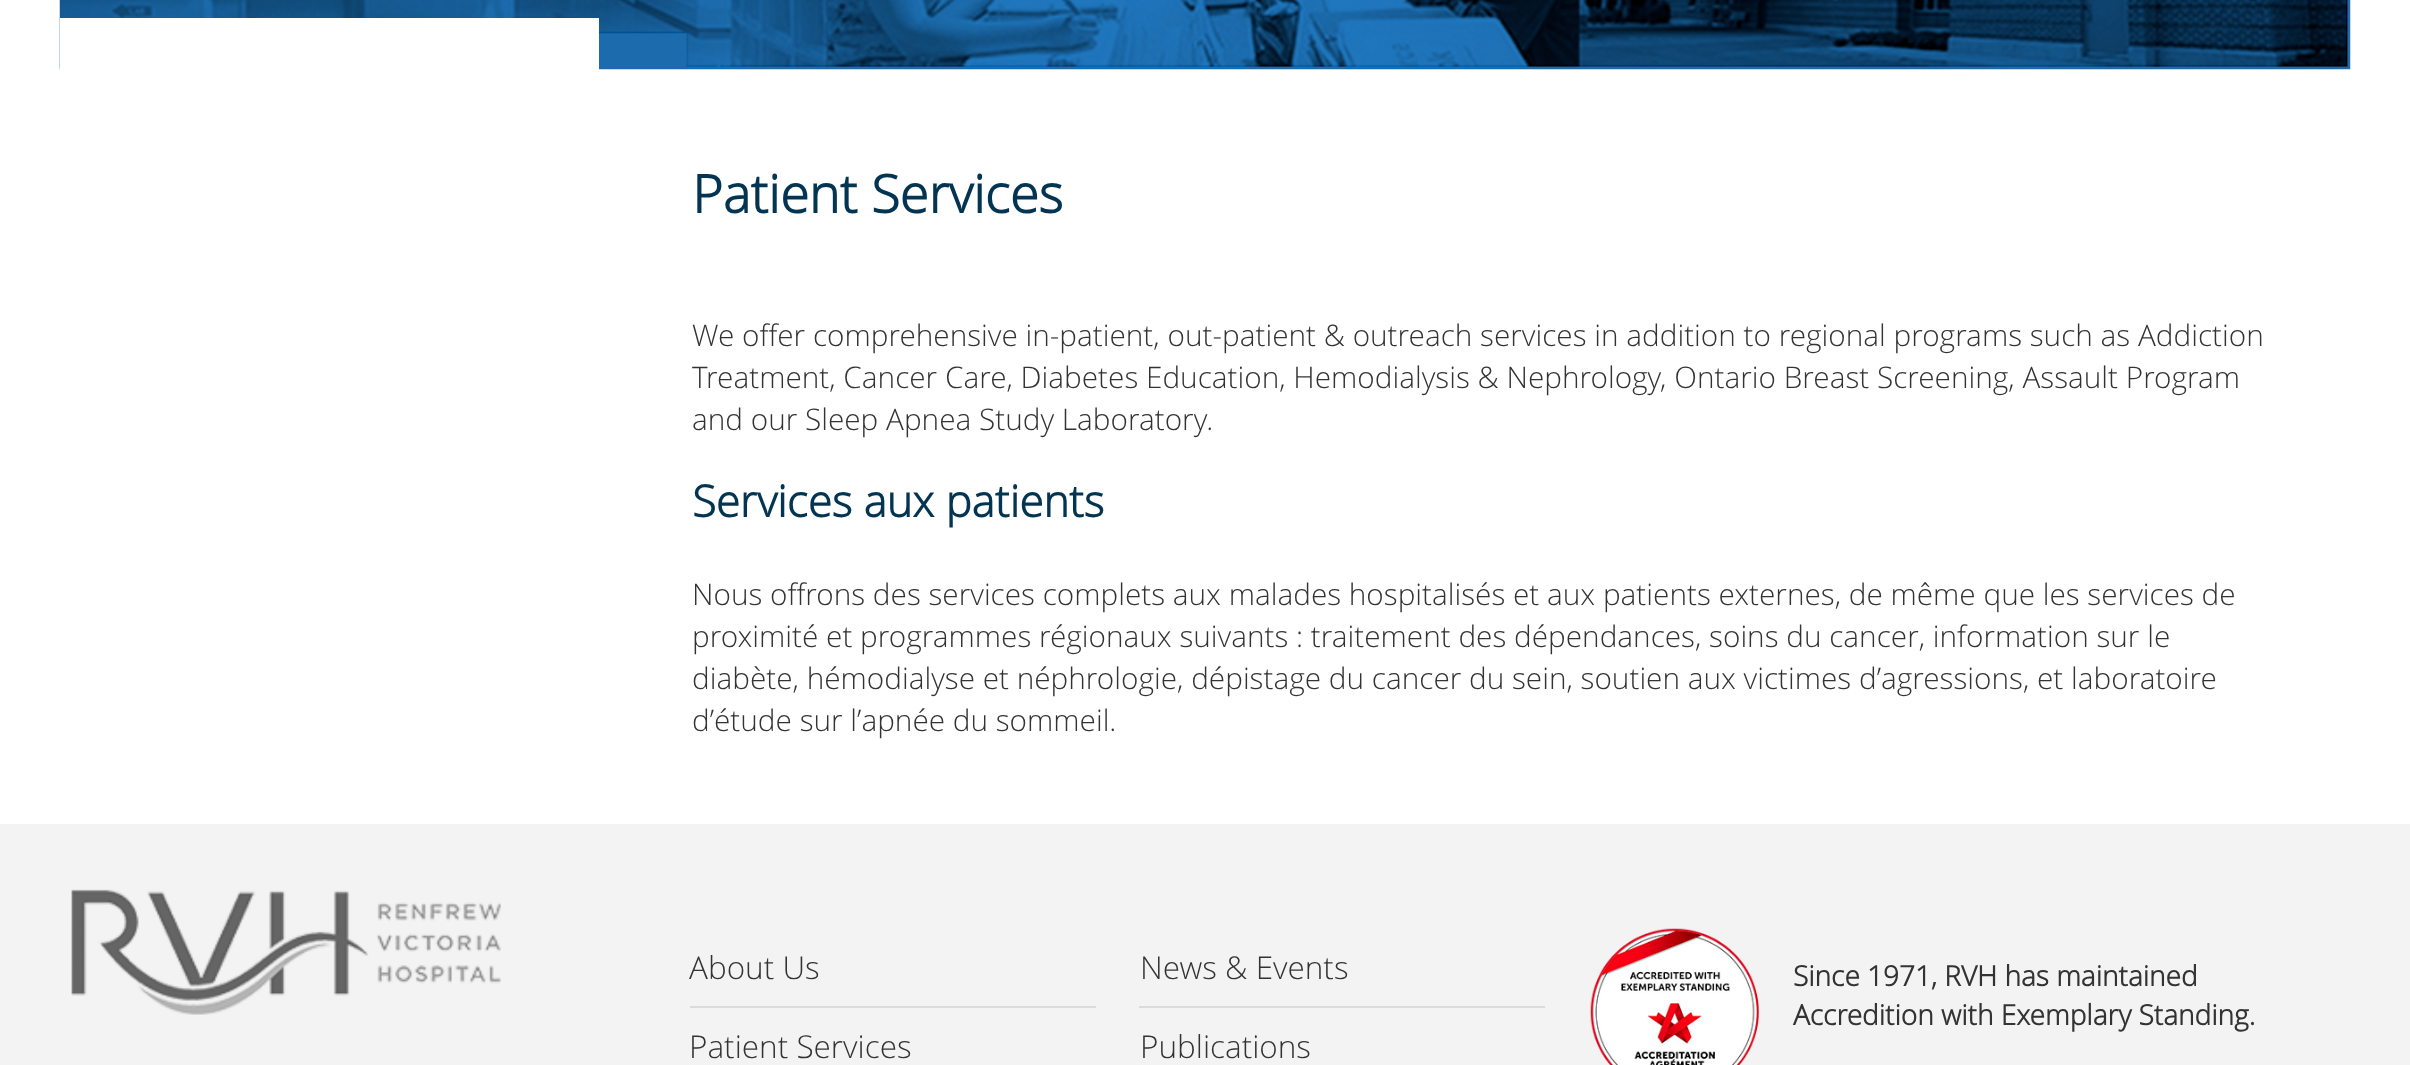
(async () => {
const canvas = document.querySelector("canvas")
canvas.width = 2410
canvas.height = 1065
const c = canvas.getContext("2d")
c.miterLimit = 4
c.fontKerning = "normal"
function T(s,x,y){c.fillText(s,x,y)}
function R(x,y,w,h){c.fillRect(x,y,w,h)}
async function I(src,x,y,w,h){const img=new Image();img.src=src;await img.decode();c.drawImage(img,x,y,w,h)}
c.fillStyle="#fff"
R(0,0,2410,1065)
await I("1.png",59,0,2292,70)
R(60,18,539,52)
c.font="bold 52.5px Open Sans"
c.fillStyle="#033451"
T("Patient Services",692,213)
c.font="300 29.75px Open Sans"
c.fillStyle="#333"
T("We offer comprehensive in-patient, out-patient & outreach services in addition to regional programs such as Addiction",692,346)
T("Treatment, Cancer Care, Diabetes Education, Hemodialysis & Nephrology, Ontario Breast Screening, Assault Program",692,388)
T("and our Sleep Apnea Study Laboratory.",692,430)
c.font="bold 43.75px Open Sans"
c.fillStyle="#033451"
T("Services aux patients",692,517)
c.font="300 29.75px Open Sans"
c.fillStyle="#333"
T("Nous offrons des services complets aux malades hospitalisés et aux patients externes, de même que les services de",692,605)
T("proximité et programmes régionaux suivants : traitement des dépendances, soins du cancer, information sur le",692,647)
T("diabète, hémodialyse et néphrologie, dépistage du cancer du sein, soutien aux victimes d’agressions, et laboratoire",692,689)
T("d’étude sur l’apnée du sommeil.",692,731)
c.fillStyle="#f3f3f3"
R(0,824,2410,241)
await I("2.png",71,889,430,126)
c.fillStyle="#dbdbdb"
R(690,1006,406,2)
c.font="300 31.5px Open Sans"
c.fillStyle="#333"
T("About Us",689,979)
c.fillStyle="#dbdbdb"
R(1139,1006,406,2)
c.fillStyle="#333"
T("News & Events",1140,979)
T("Patient Services",689,1058)
T("Publications",1140,1058)
await I("3.png",1590,928,169,137)
c.font="bold 28px Open Sans"
T("Since 1971, RVH has maintained",1793,986)
T("Accredition with Exemplary Standing.",1793,1025)
})()
